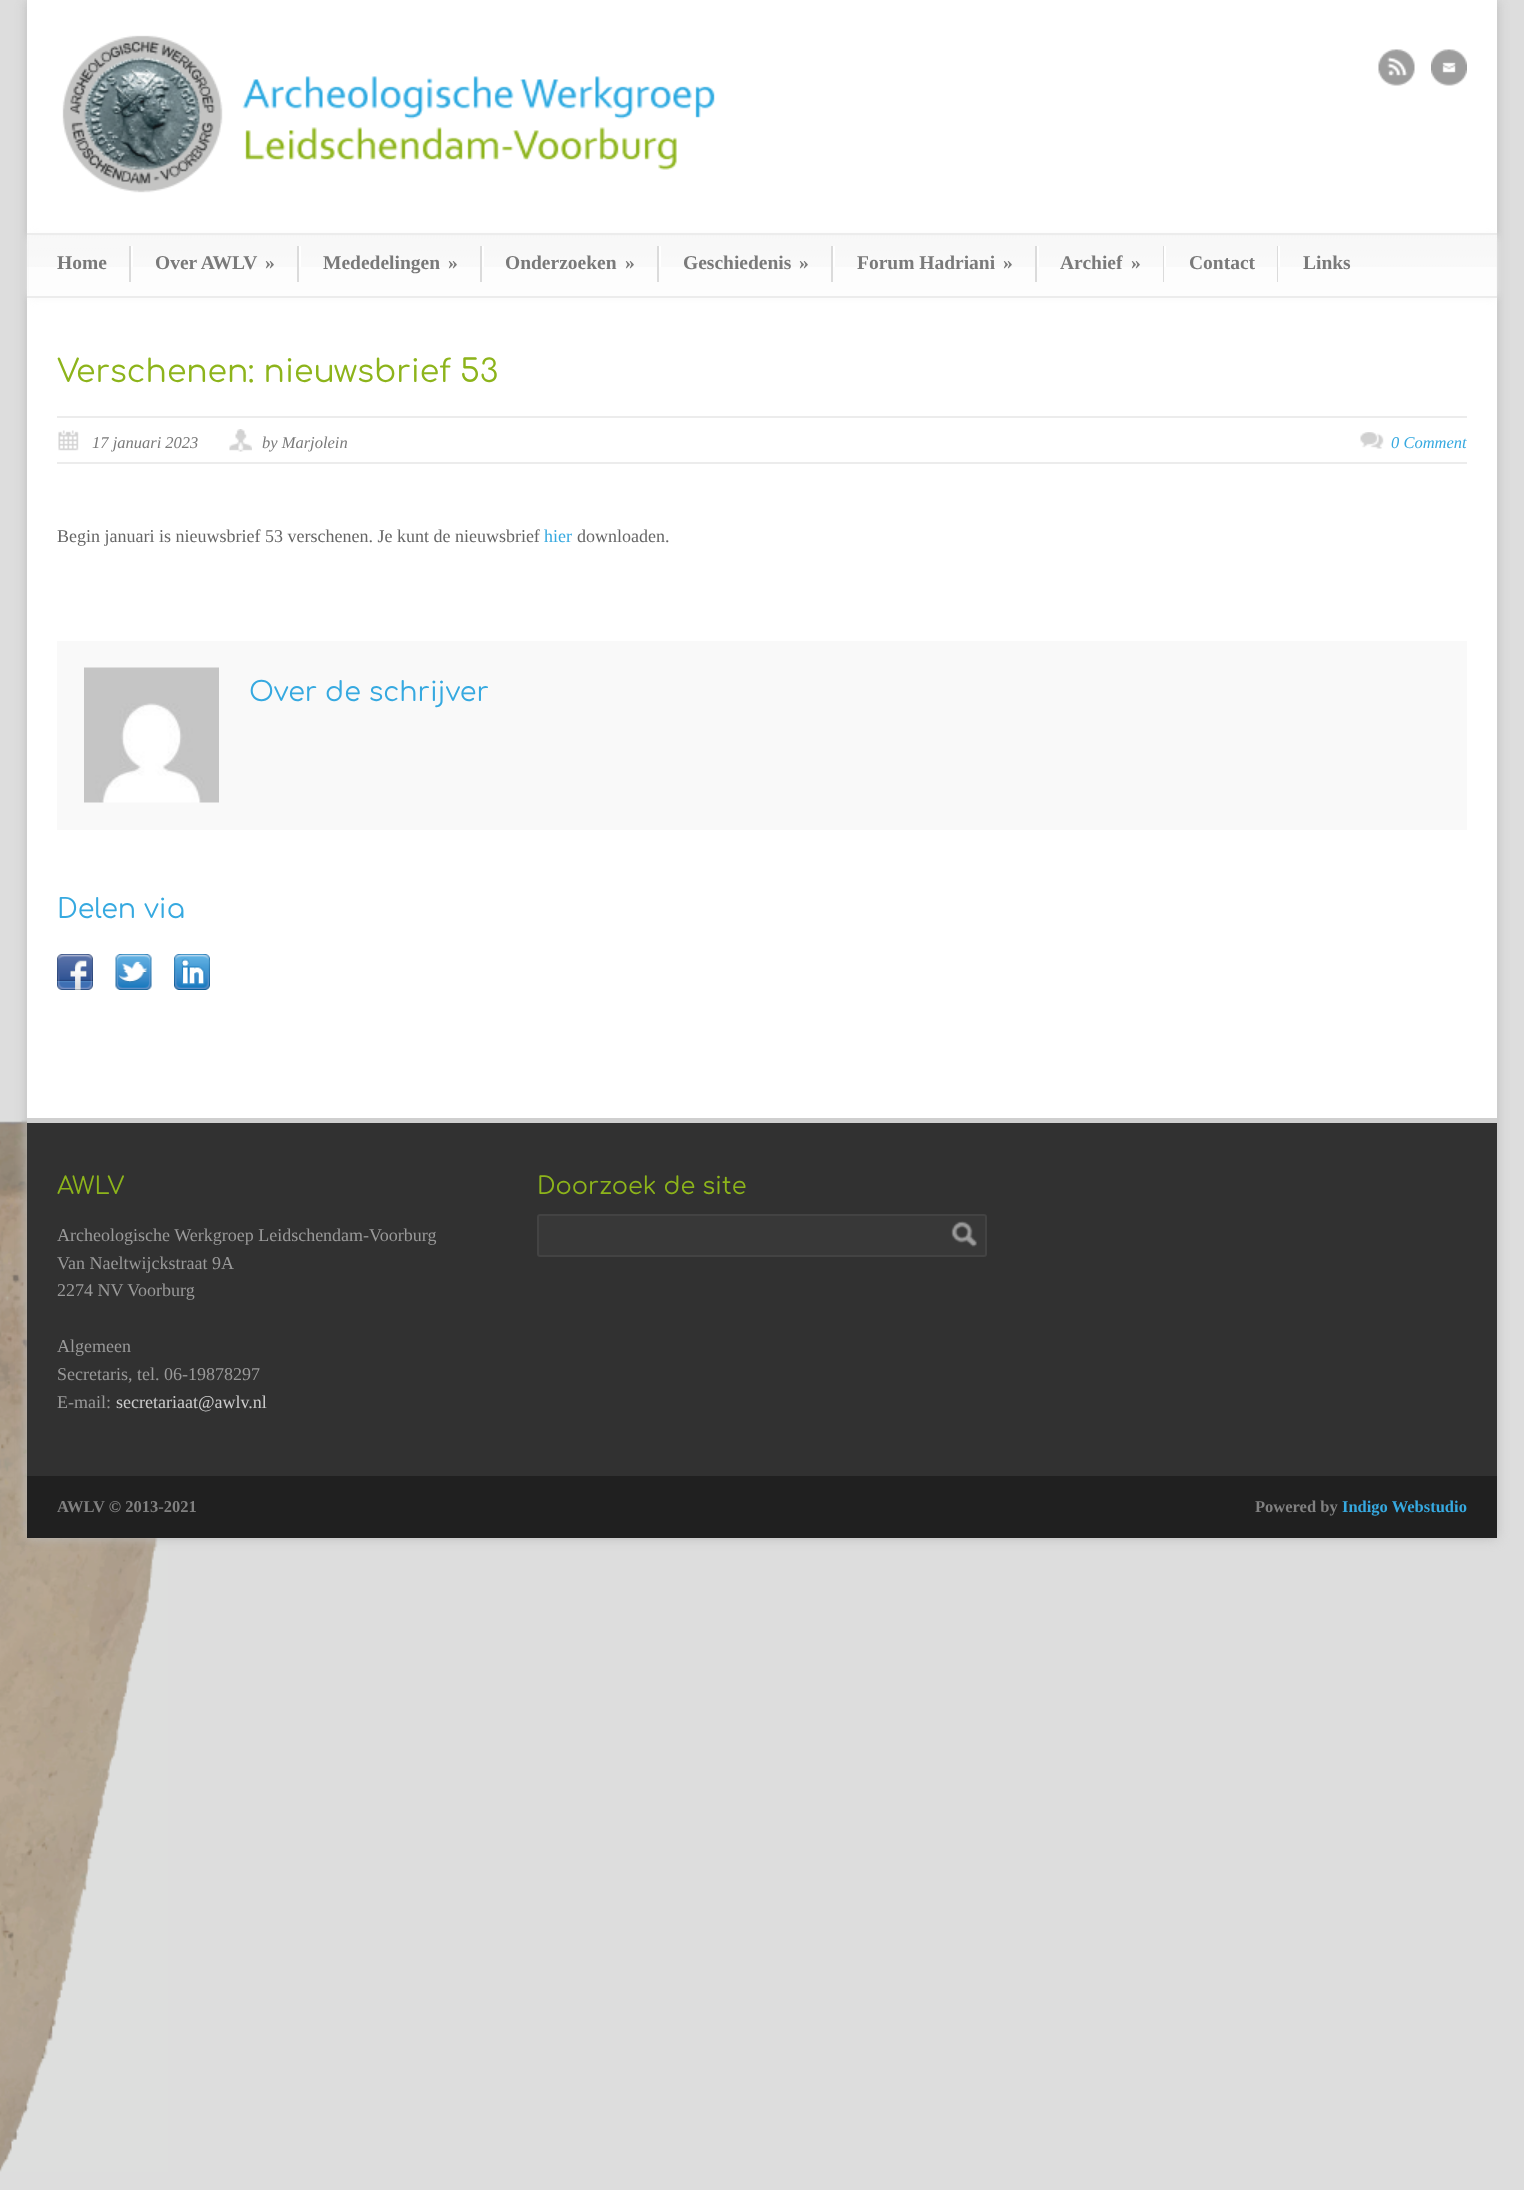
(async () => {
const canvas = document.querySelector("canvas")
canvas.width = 1524
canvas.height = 2190
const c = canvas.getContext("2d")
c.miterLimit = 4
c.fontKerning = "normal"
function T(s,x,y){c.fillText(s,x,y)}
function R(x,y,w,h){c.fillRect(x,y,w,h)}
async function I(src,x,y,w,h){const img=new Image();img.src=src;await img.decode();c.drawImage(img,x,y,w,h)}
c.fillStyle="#ddd"
R(0,0,1524,2190)
await I("13.png",0,1119,168,1053)
c.fillStyle="#bbb"
c.filter="blur(6px)"
c.beginPath()
c.rect(27,0,1470,1538)
c.fill()
c.filter="none"
c.fillStyle="#fff"
R(27,0,1470,1118)
await I("1.png",62,35,653,158)
await I("2.png",1378,49,37,37)
await I("3.png",1431,49,36,37)
c.fillStyle="#f5f5f5"
c.filter="blur(4px)"
c.beginPath()
c.rect(29,236,1467,61)
c.fill()
c.filter="none"
c.fillStyle="#fdfdfd"
R(29,236,1467,60)
await I("4.png",27,235,1470,32)
c.fillStyle="#ececec"
R(27,233,1470,2)
R(27,296,1470,2)
c.fillStyle="#dbdbdb"
R(129,246,2,36)
c.font="bold 19.5px Liberation Serif"
c.fillStyle="#7a7a7a"
T("Home",57,269)
c.fillStyle="#dbdbdb"
R(297,246,2,36)
c.fillStyle="#fff"
R(131,246,2,21)
c.fillStyle="#7a7a7a"
T("Over AWLV",155,269)
T("»",265,269)
c.fillStyle="#dbdbdb"
R(480,246,2,36)
c.fillStyle="#fff"
R(299,246,2,21)
c.fillStyle="#7a7a7a"
T("Mededelingen",323,269)
T("»",448,269)
c.fillStyle="#dbdbdb"
R(657,246,2,36)
c.fillStyle="#fff"
R(482,246,2,21)
c.fillStyle="#7a7a7a"
T("Onderzoeken",505,269)
T("»",625,269)
c.fillStyle="#dbdbdb"
R(831,246,2,36)
c.fillStyle="#fff"
R(659,246,2,21)
c.fillStyle="#7a7a7a"
T("Geschiedenis",683,269)
T("»",799,269)
c.fillStyle="#dbdbdb"
R(1035,246,2,36)
c.fillStyle="#fff"
R(833,246,2,21)
c.fillStyle="#7a7a7a"
T("Forum Hadriani",857,269)
T("»",1003,269)
c.fillStyle="#dbdbdb"
R(1163,246,1,36)
c.fillStyle="#fff"
R(1037,246,2,21)
c.fillStyle="#7a7a7a"
T("Archief",1060,269)
T("»",1131,269)
c.fillStyle="#dbdbdb"
R(1277,246,1,36)
c.fillStyle="#fff"
R(1164,246,2,21)
c.fillStyle="#7a7a7a"
T("Contact",1189,269)
c.fillStyle="#fff"
R(1278,246,2,21)
c.fillStyle="#7a7a7a"
T("Links",1303,269)
c.font="31.5px Comfortaa"
c.fillStyle="#8db41b"
T("Verschenen: nieuwsbrief 53",57,382)
c.fillStyle="#ececec"
R(57,416,1410,2)
R(57,462,1410,2)
await I("5.png",58,430,21,21)
c.font="italic 16.5px Liberation Serif"
c.fillStyle="#7a7a7a"
T("17 januari 2023",92,448)
await I("6.png",229,429,23,23)
T("by Marjolein",262,448)
await I("7.png",1360,432,24,17)
c.fillStyle="#36a9e0"
T("0 Comment",1391,448)
c.font="18px Liberation Serif"
c.fillStyle="#666"
T("Begin januari is nieuwsbrief 53 verschenen. Je kunt de nieuwsbrief",57,542)
c.fillStyle="#36a9e0"
T("hier",544,542)
c.fillStyle="#666"
T("downloaden.",577,542)
c.fillStyle="#f9f9f9"
R(57,641,1410,189)
await I("8.png",84,667,135,136)
c.font="27px Comfortaa"
c.fillStyle="#36a9e0"
T("Over de schrijver",249,701)
T("Delen via",57,918)
await I("9.png",57,954,36,36)
await I("10.png",115,954,37,36)
await I("11.png",174,954,36,36)
c.fillStyle="#313131"
R(27,1123,1470,353)
c.fillStyle="#cfcfcf"
R(27,1118,1470,5)
c.font="24px Comfortaa"
c.fillStyle="#8db41b"
T("AWLV",57,1194)
c.font="18px Liberation Serif"
c.fillStyle="#999"
T("Archeologische Werkgroep Leidschendam-Voorburg",57,1241)
T("Van Naeltwijckstraat 9A",57,1269)
T("2274 NV Voorburg ",57,1296)
T("Algemeen",57,1352)
T("Secretaris, tel. 06-19878297",57,1380)
T("E-mail:",57,1408)
c.fillStyle="#ccc"
T("secretariaat@awlv.nl",116,1408)
c.font="24px Comfortaa"
c.fillStyle="#8db41b"
T("Doorzoek de site",537,1194)
c.fillStyle="#383838"
c.beginPath()
c.roundRect(538,1215,448,41,2)
c.fill()
c.strokeStyle="#434343"
c.lineWidth=2
c.stroke()
await I("12.png",951,1221,26,26)
c.fillStyle="#202020"
R(27,1476,1470,62)
c.font="bold 16.5px Liberation Serif"
c.fillStyle="#808080"
T("AWLV © 2013-2021",57,1512)
T("Powered by",1255,1512)
c.fillStyle="#36a9e0"
T("Indigo Webstudio",1342,1512)
})()
